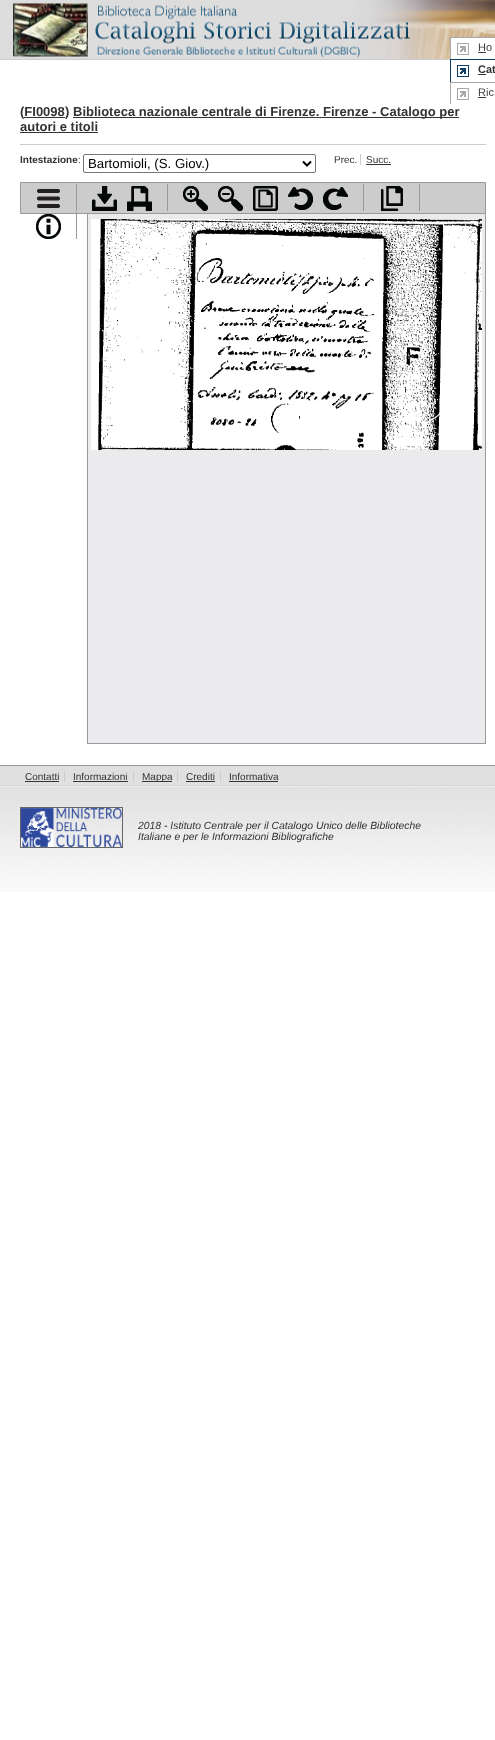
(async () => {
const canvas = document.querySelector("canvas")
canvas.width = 495
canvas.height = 1740
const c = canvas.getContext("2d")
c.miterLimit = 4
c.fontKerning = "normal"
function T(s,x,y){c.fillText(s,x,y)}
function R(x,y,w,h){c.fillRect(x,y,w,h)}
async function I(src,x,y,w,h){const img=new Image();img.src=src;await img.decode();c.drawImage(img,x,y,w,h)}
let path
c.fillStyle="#fff"
R(0,0,495,1740)
c.fillStyle="#ccc"
R(0,59,450,1)
await I("1.png",0,0,495,59)
await I("2.png",450,37,45,22)
c.font="11px Liberation Sans"
c.fillStyle="#3f3f3f"
T("Ho",478,51)
R(478,52,8,1)
await I("3.png",450,59,45,23)
c.font="bold 11px Liberation Sans"
c.fillStyle="#333"
T("Cat",478,73)
R(478,74,8,1)
await I("4.png",450,82,45,22)
c.font="11px Liberation Sans"
c.fillStyle="#3f3f3f"
T("Ric",478,96)
R(478,97,8,1)
c.font="bold 13px Liberation Sans"
c.fillStyle="#333"
T("(FI0098",20,116)
R(24,117,41,1)
T(")",65,116)
R(73,117,386,1)
T("Biblioteca nazionale centrale di Firenze. Firenze - Catalogo per",73,116)
T("autori e titoli",20,131)
R(20,132,78,1)
c.fillStyle="#ccc"
R(20,144,466,1)
c.font="bold 10px Liberation Sans"
c.fillStyle="#333"
T("Intestazione",20,163)
c.font="10px Liberation Sans"
T(":",78,163)
c.beginPath()
c.roundRect(83.5,154.5,232,18,1.5)
c.strokeStyle="#767676"
c.stroke()
path = new Path2D("M303 161.5l4 4l4-4")
c.strokeStyle="#000"
c.lineWidth=2
c.stroke(path)
c.font="13.25px Liberation Sans"
c.fillStyle="#000"
T("Bartomioli, (S. Giov.)",88,168)
c.font="10px Liberation Sans"
c.fillStyle="#333"
T("Prec.",334,163)
c.fillStyle="#ccc"
R(360,154,1,11)
c.fillStyle="#333"
T("Succ.",366,163)
R(366,164,25,1)
c.fillStyle="#ccc"
c.beginPath()
c.rect(20.5,182.5,465,31)
c.fill()
c.strokeStyle="#999"
c.lineWidth=1
c.stroke()
c.fillStyle="#999"
R(76,184,1,27)
await I("5.png",37,189,23,19)
R(167,184,1,27)
await I("6.png",92,186,25,25)
await I("7.png",127,186,25,25)
R(363,184,1,27)
await I("8.png",183,186,25,25)
await I("9.png",218,186,25,25)
await I("10.png",253,186,25,25)
await I("11.png",288,187,25,23)
await I("12.png",323,187,25,23)
R(419,184,1,27)
await I("13.png",381,186,22,25)
R(76,212,1,27)
await I("14.png",36,214,25,25)
c.fillStyle="#ebeaec"
R(88,214,397,529)
c.fillStyle="#999"
R(485,214,1,530)
R(87,743,399,1)
R(87,214,1,530)
await I("15.png",91,219,391,231)
await I("16.png",0,766,495,126)
R(0,765,495,1)
await I("17.png",0,785,495,2)
c.fillStyle="#333"
T("Contatti",25,780)
c.fillStyle="#ccc"
R(64,771,1,11)
c.fillStyle="#333"
R(25,781,34,1)
T("Informazioni",73,780)
c.fillStyle="#ccc"
R(133,771,1,11)
c.fillStyle="#333"
R(73,781,55,1)
R(142,781,30,1)
T("Mappa",142,780)
c.fillStyle="#ccc"
R(177,771,1,11)
c.fillStyle="#333"
T("Crediti",186,780)
c.fillStyle="#ccc"
R(220,771,1,11)
c.fillStyle="#333"
R(186,781,29,1)
T("Informativa",229,780)
R(229,781,49,1)
c.strokeStyle="#666"
c.strokeRect(20.5,807.5,102,40)
await I("18.png",21,808,101,39)
c.font="italic 10.4px Liberation Sans"
T("2018 - Istituto Centrale per il Catalogo Unico delle Biblioteche",138,829)
T("Italiane e per le Informazioni Bibliografiche",138,840)
})()
